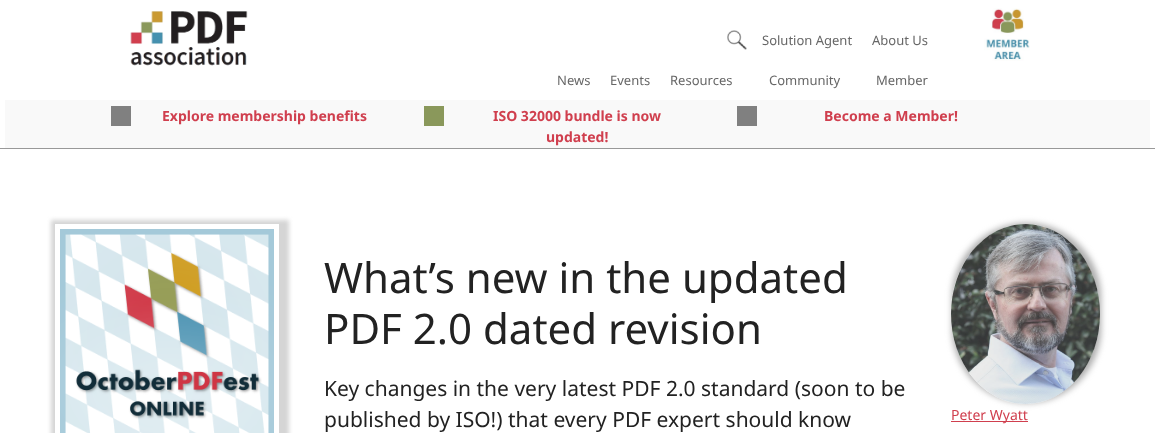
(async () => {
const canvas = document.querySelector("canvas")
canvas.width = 1155
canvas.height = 433
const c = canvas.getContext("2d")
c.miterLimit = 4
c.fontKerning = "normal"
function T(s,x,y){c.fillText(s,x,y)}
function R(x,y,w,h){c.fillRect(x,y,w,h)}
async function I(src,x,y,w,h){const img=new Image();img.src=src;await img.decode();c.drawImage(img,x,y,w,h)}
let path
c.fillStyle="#fff"
R(0,0,1155,433)
c.fillStyle="#999"
R(0,148,1155,1)
await I("1.png",130,11,118,55)
await I("2.png",727,30,20,20)
c.font="13px Noto Sans"
c.fillStyle="#666"
T("Solution Agent",762,45)
T("About Us",872,45)
T("News",557,85)
T("Events",610,85)
T("Resources",670,85)
T("Community",769,85)
T("Member",876,85)
await I("3.png",984,8,46,53)
c.fillStyle="#f9f9f9"
R(5,100,1145,48)
c.fillStyle="#808080"
R(111,106,20,20)
c.font="bold 14px Noto Sans"
c.fillStyle="#d03f4e"
T("Explore membership benefits",162,121)
c.fillStyle="#8a985b"
R(424,106,20,20)
c.fillStyle="#d03f4e"
T("ISO 32000 bundle is now",493,121)
T("updated!",546,142)
c.fillStyle="#808080"
R(737,106,20,20)
c.fillStyle="#d03f4e"
T("Become a Member!",824,121)
c.save()
path = new Path2D("M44 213h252v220h-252zm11 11h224v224h-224z")
c.clip(path,"evenodd")
c.fillStyle="#d5d5d5"
c.filter="blur(2px)"
c.beginPath()
c.rect(51,220,238,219)
c.fill()
c.filter="none"
c.restore()
await I("4.png",60,229,214,204)
c.font="42px Noto Sans"
c.fillStyle="#222"
T("What’s new in the updated",324,293)
T("PDF 2.0 dated revision",324,344)
c.font="21px Noto Sans"
T("Key changes in the very latest PDF 2.0 standard (soon to be",324,396)
T("published by ISO!) that every PDF expert should know",324,427)
c.save()
path = new Path2D("M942 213h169v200h-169zm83.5 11c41 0 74.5 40.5 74.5 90c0 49.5-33.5 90-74.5 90c-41 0-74.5-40.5-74.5-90c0-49.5 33.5-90 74.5-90z")
c.clip(path,"evenodd")
c.fillStyle="#999999cc"
c.filter="blur(3px)"
c.beginPath()
c.roundRect(952,223,149,180,74.5)
c.fill()
c.filter="none"
c.restore()
await I("5.png",951,224,149,180)
c.fillStyle="#d03f4e"
R(951,421,77,1)
c.font="14px Noto Sans"
T("Peter Wyatt",951,420)
})()
